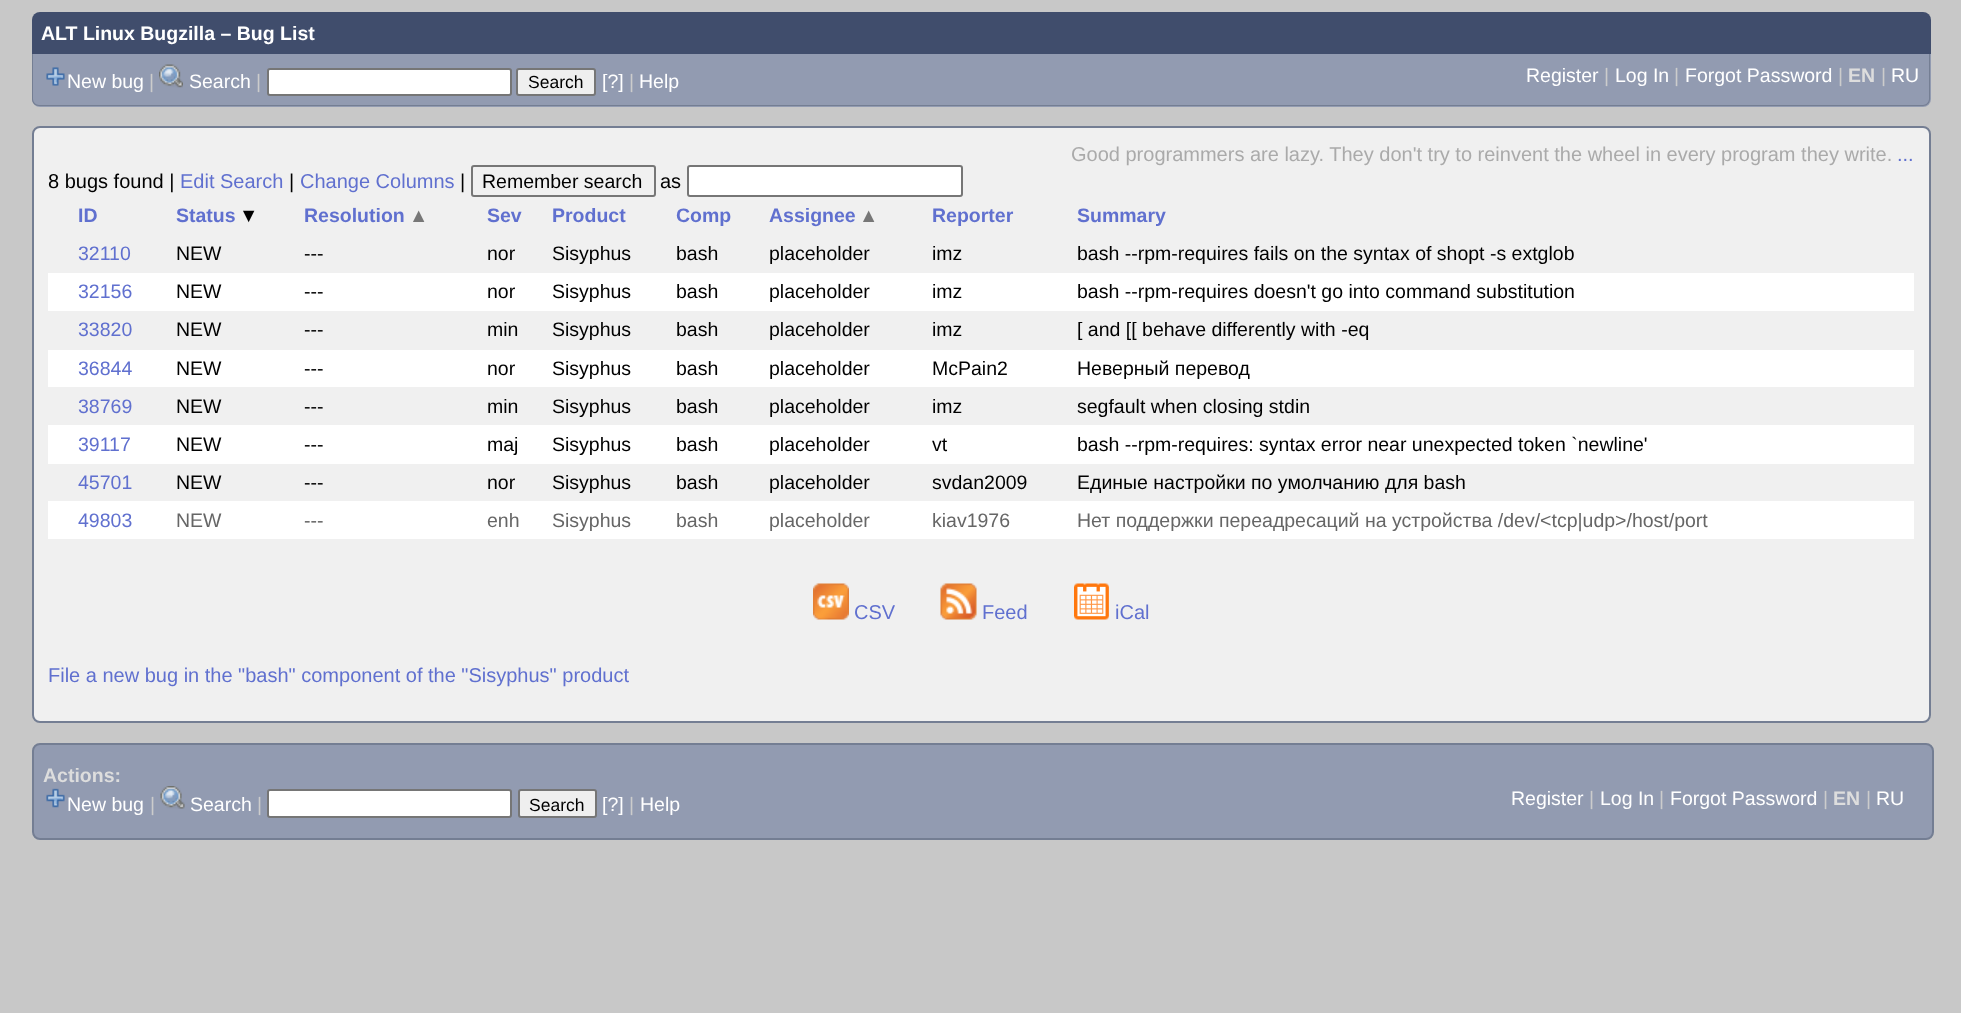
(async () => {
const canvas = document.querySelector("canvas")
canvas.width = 1961
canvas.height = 1013
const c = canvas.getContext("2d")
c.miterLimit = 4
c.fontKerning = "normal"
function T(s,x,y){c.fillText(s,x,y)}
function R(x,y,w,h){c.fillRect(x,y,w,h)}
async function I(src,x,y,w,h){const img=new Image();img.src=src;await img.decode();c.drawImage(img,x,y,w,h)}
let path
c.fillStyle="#c8c8c8"
R(0,0,1961,1013)
c.fillStyle="#404d6c"
c.beginPath()
c.roundRect(32,12,1899,42,[8,8,0,0])
c.fill()
c.font="bold 19.5px Liberation Sans"
c.fillStyle="#fff"
T("ALT Linux Bugzilla – Bug List",41,40)
c.fillStyle="#929bb1"
c.beginPath()
c.roundRect(32,54,1899,53,[0,0,8,8])
c.fill()
c.fillStyle="#747e93"
path = new Path2D("M32 54h1898v45c0 4-3 7-7 7h-1884c-4 0-7-3-7-7zm1 0h1896v45c0 3-3 6-6 6h-1884c-3 0-6-3-6-6z")
c.fill(path,"evenodd")
await I("1.png",46,67,19,19)
c.font="19.5px Liberation Sans"
c.fillStyle="#fff"
T("New bug",67,88)
c.fillStyle="#ccc"
T("|",149,88)
await I("2.png",159,64,24,24)
c.fillStyle="#fff"
T("Search",189,88)
c.fillStyle="#ccc"
T("|",256,88)
c.fillStyle="#fff"
c.beginPath()
c.roundRect(268,69,243,26,2)
c.fill()
c.strokeStyle="#767676"
c.lineWidth=2
c.stroke()
c.fillStyle="#efefef"
c.beginPath()
c.roundRect(517,69,78,26,2)
c.fill()
c.stroke()
c.font="17.5px Liberation Sans"
c.fillStyle="#000"
T("Search",528,88)
c.font="19.5px Liberation Sans"
c.fillStyle="#fff"
T("[?]",602,88)
c.fillStyle="#ccc"
T("|",629,88)
c.fillStyle="#fff"
T("Help",639,88)
T("Register",1526,82)
c.fillStyle="#ccc"
T("|",1604,82)
c.fillStyle="#fff"
T("Log In",1615,82)
c.fillStyle="#ccc"
T("|",1674,82)
c.fillStyle="#fff"
T("Forgot Password",1685,82)
c.fillStyle="#ccc"
T("|",1838,82)
c.font="bold 19.5px Liberation Sans"
c.fillStyle="#ddd"
T("EN",1848,82)
c.font="19.5px Liberation Sans"
c.fillStyle="#ccc"
T("|",1881,82)
c.fillStyle="#fff"
T("RU",1891,82)
c.fillStyle="#f0f0f0"
c.beginPath()
c.roundRect(33,127,1897,595,7)
c.fill()
c.strokeStyle="#747e93"
c.stroke()
c.font="20px Liberation Sans"
c.fillStyle="#aaa"
T("Good programmers are lazy. They don't try to reinvent the wheel in every program they write.",1071,161)
c.fillStyle="#6070cf"
T("...",1897,161)
c.fillStyle="#000"
T("8 bugs found |",48,188)
c.fillStyle="#6070cf"
T("Edit Search",180,188)
c.fillStyle="#000"
T("|",289,188)
c.fillStyle="#6070cf"
T("Change Columns",300,188)
c.fillStyle="#000"
T("|",460,188)
c.beginPath()
c.roundRect(472,166,183,30,2)
c.strokeStyle="#767676"
c.stroke()
c.font="19.5px Liberation Sans"
T("Remember search",482,188)
c.font="20px Liberation Sans"
T("as",660,188)
c.fillStyle="#fff"
c.beginPath()
c.roundRect(688,166,274,30,2)
c.fill()
c.stroke()
c.font="bold 19.5px Liberation Sans"
c.fillStyle="#6070cf"
T("ID",78,222)
T("Status",176,222)
c.fillStyle="#000"
T("▼",239,222)
c.fillStyle="#6070cf"
T("Resolution",304,222)
c.fillStyle="#777"
T("▲",409,222)
c.fillStyle="#6070cf"
T("Sev",487,222)
T("Product",552,222)
T("Comp",676,222)
T("Assignee",769,222)
c.fillStyle="#777"
T("▲",859,222)
c.fillStyle="#6070cf"
T("Reporter",932,222)
T("Summary",1077,222)
c.font="19.5px Liberation Sans"
T("32110",78,260)
c.fillStyle="#000"
T("NEW",176,260)
T("---",304,260)
T("nor",487,260)
T("Sisyphus",552,260)
T("bash",676,260)
T("placeholder",769,260)
T("imz",932,260)
T("bash --rpm-requires fails on the syntax of shopt -s extglob",1077,260)
c.fillStyle="#fff"
R(48,273,1866,38)
c.fillStyle="#6070cf"
T("32156",78,298)
c.fillStyle="#000"
T("NEW",176,298)
T("---",304,298)
T("nor",487,298)
T("Sisyphus",552,298)
T("bash",676,298)
T("placeholder",769,298)
T("imz",932,298)
T("bash --rpm-requires doesn't go into command substitution",1077,298)
c.fillStyle="#6070cf"
T("33820",78,336)
c.fillStyle="#000"
T("NEW",176,336)
T("---",304,336)
T("min",487,336)
T("Sisyphus",552,336)
T("bash",676,336)
T("placeholder",769,336)
T("imz",932,336)
T("[ and [[ behave differently with -eq",1077,336)
c.fillStyle="#fff"
R(48,350,1866,37)
c.fillStyle="#6070cf"
T("36844",78,375)
c.fillStyle="#000"
T("NEW",176,375)
T("---",304,375)
T("nor",487,375)
T("Sisyphus",552,375)
T("bash",676,375)
T("placeholder",769,375)
T("McPain2",932,375)
T("Неверный перевод",1077,375)
c.fillStyle="#6070cf"
T("38769",78,413)
c.fillStyle="#000"
T("NEW",176,413)
T("---",304,413)
T("min",487,413)
T("Sisyphus",552,413)
T("bash",676,413)
T("placeholder",769,413)
T("imz",932,413)
T("segfault when closing stdin",1077,413)
c.fillStyle="#fff"
R(48,425,1866,39)
c.fillStyle="#6070cf"
T("39117",78,451)
c.fillStyle="#000"
T("NEW",176,451)
T("---",304,451)
T("maj",487,451)
T("Sisyphus",552,451)
T("bash",676,451)
T("placeholder",769,451)
T("vt",932,451)
T("bash --rpm-requires: syntax error near unexpected token `newline'",1077,451)
c.fillStyle="#6070cf"
T("45701",78,489)
c.fillStyle="#000"
T("NEW",176,489)
T("---",304,489)
T("nor",487,489)
T("Sisyphus",552,489)
T("bash",676,489)
T("placeholder",769,489)
T("svdan2009",932,489)
T("Единые настройки по умолчанию для bash",1077,489)
c.fillStyle="#fff"
R(48,501,1866,38)
c.fillStyle="#6070cf"
T("49803",78,527)
c.fillStyle="#666"
T("NEW",176,527)
T("---",304,527)
T("enh",487,527)
T("Sisyphus",552,527)
T("bash",676,527)
T("placeholder",769,527)
T("kiav1976",932,527)
T("Нет поддержки переадресаций на устройства /dev/<tcp|udp>/host/port",1077,527)
await I("3.png",813,583,36,37)
c.font="20px Liberation Sans"
c.fillStyle="#6070cf"
T("CSV",854,619)
await I("4.png",940,583,37,37)
T("Feed",982,619)
await I("5.png",1074,583,35,37)
T("iCal",1115,619)
T("File a new bug in the \"bash\" component of the \"Sisyphus\" product",48,682)
c.fillStyle="#929bb1"
c.beginPath()
c.roundRect(33,744,1900,95,7)
c.fill()
c.strokeStyle="#747e93"
c.stroke()
c.font="bold 19.5px Liberation Sans"
c.fillStyle="#ddd"
T("Actions:",43,782)
await I("6.png",46,788,19,20)
c.font="19.5px Liberation Sans"
c.fillStyle="#fff"
T("New bug",67,811)
c.fillStyle="#ccc"
T("|",150,811)
await I("7.png",160,786,25,23)
c.fillStyle="#fff"
T("Search",190,811)
c.fillStyle="#ccc"
T("|",257,811)
c.fillStyle="#fff"
c.beginPath()
c.roundRect(268,790,243,27,2)
c.fill()
c.strokeStyle="#767676"
c.stroke()
c.fillStyle="#efefef"
c.beginPath()
c.roundRect(519,790,77,27,2)
c.fill()
c.stroke()
c.font="17.5px Liberation Sans"
c.fillStyle="#000"
T("Search",529,811)
c.font="19.5px Liberation Sans"
c.fillStyle="#fff"
T("[?]",602,811)
c.fillStyle="#ccc"
T("|",629,811)
c.fillStyle="#fff"
T("Help",640,811)
T("Register",1511,805)
c.fillStyle="#ccc"
T("|",1589,805)
c.fillStyle="#fff"
T("Log In",1600,805)
c.fillStyle="#ccc"
T("|",1659,805)
c.fillStyle="#fff"
T("Forgot Password",1670,805)
c.fillStyle="#ccc"
T("|",1823,805)
c.font="bold 19.5px Liberation Sans"
c.fillStyle="#ddd"
T("EN",1833,805)
c.font="19.5px Liberation Sans"
c.fillStyle="#ccc"
T("|",1866,805)
c.fillStyle="#fff"
T("RU",1876,805)
})()
